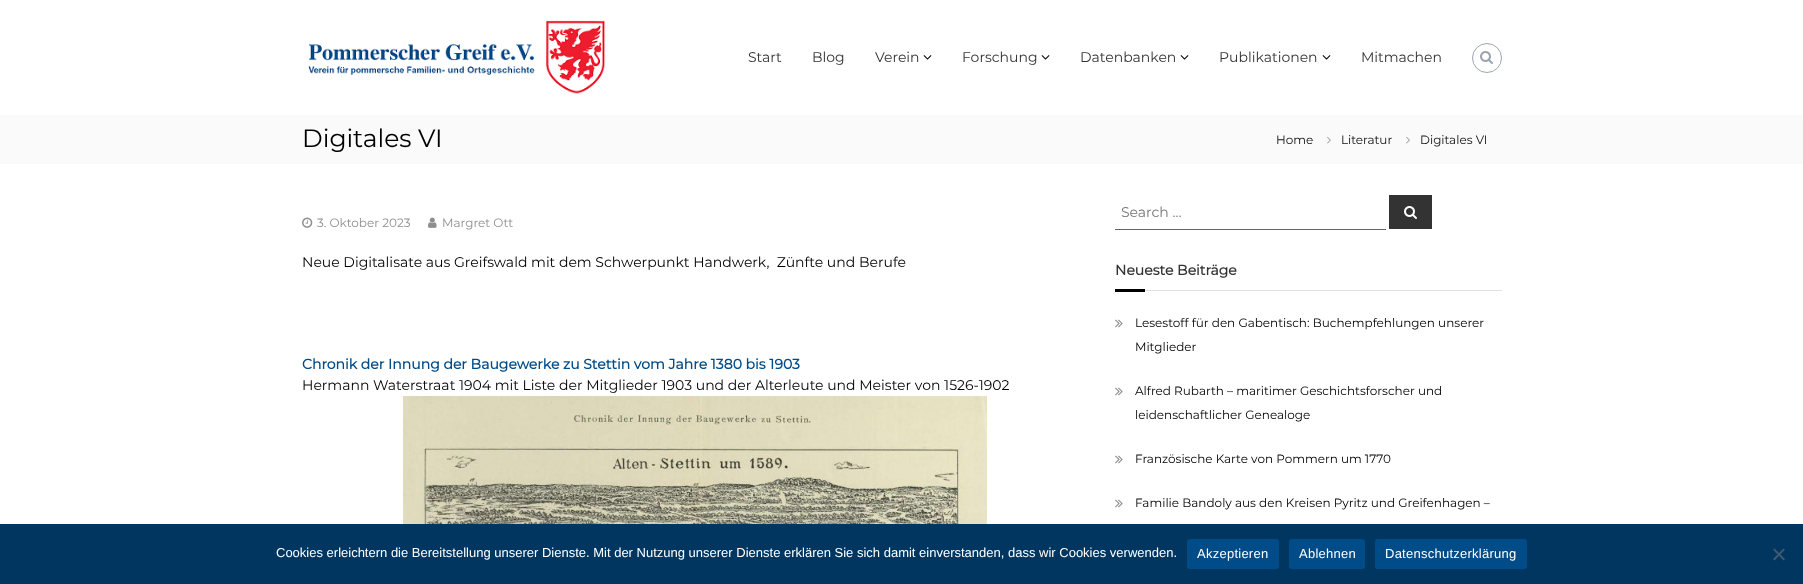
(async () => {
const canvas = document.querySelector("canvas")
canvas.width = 1803
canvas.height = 584
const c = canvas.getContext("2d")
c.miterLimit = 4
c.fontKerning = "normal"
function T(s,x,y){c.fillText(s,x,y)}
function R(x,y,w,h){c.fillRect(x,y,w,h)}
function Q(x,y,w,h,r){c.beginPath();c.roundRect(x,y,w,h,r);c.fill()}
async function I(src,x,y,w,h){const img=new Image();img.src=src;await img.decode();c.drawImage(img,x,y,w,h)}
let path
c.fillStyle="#fff"
R(0,0,1803,584)
await I("1.png",308,20,298,74)
c.font="14px Montserrat"
c.fillStyle="#333"
T("Start",748,62)
T("Blog",812,62)
T("Verein",875,62)
await I("2.png",923,55,9,5)
T("Forschung",962,62)
await I("2.png",1041,55,9,5)
T("Datenbanken",1080,62)
await I("2.png",1180,55,9,5)
T("Publikationen",1219,62)
await I("2.png",1322,55,9,5)
T("Mitmachen",1361,62)
c.beginPath()
c.arc(1487,58,14.5,0,7)
c.strokeStyle="#9ca6b2"
c.stroke()
await I("3.png",1480,51,13,13)
c.fillStyle="#fafafa"
R(0,115,1803,49)
c.font="25px Montserrat"
c.fillStyle="#000"
T("Digitales VI",302,147)
c.font="12px Montserrat"
c.fillStyle="#0f0f0f"
T("Home",1276,144)
await I("4.png",1327,136,4,8)
T("Literatur",1341,144)
await I("4.png",1406,136,4,8)
T("Digitales VI",1420,144)
await I("5.png",302,217,11,11)
c.fillStyle="#8e8e8e"
T("3. Oktober 2023",317,227)
await I("6.png",428,217,9,11)
T("Margret Ott",442,227)
c.font="14px Montserrat"
c.fillStyle="#000"
T("Neue Digitalisate aus Greifswald mit dem Schwerpunkt Handwerk,  Zünfte und Berufe",302,267)
c.font="bold 14px Montserrat"
c.fillStyle="#004c89"
T("Chronik der Innung der Baugewerke zu Stettin vom Jahre 1380 bis 1903",302,369)
c.font="14px Montserrat"
c.fillStyle="#000"
T("Hermann Waterstraat 1904 mit Liste der Mitglieder 1903 und der Alterleute und Meister von 1526-1902",302,390)
await I("7.png",403,396,584,128)
c.fillStyle="#666"
R(1115,229,271,1)
c.fillStyle="#757575"
T("Search …",1121,217)
c.fillStyle="#333"
R(1389,195,43,34)
await I("8.png",1404,206,13,13)
c.font="bold 14px Montserrat"
T("Neueste Beiträge",1115,275)
c.fillStyle="#000"
R(1115,289,30,3)
c.fillStyle="#e1e1e1"
R(1145,290,357,1)
await I("9.png",1115,319,8,9)
c.font="12px Montserrat"
c.fillStyle="#000"
T("Lesestoff für den Gabentisch: Buchempfehlungen unserer",1135,327)
T("Mitglieder",1135,351)
await I("9.png",1115,387,8,9)
T("Alfred Rubarth – maritimer Geschichtsforscher und",1135,395)
T("leidenschaftlicher Genealoge",1135,419)
await I("9.png",1115,455,8,9)
T("Französische Karte von Pommern um 1770",1135,463)
await I("9.png",1115,499,8,9)
T("Familie Bandoly aus den Kreisen Pyritz und Greifenhagen –",1135,507)
c.fillStyle="#003660"
R(0,524,1803,60)
c.font="13px Liberation Sans"
c.fillStyle="#fff"
T("Cookies erleichtern die Bereitstellung unserer Dienste. Mit der Nutzung unserer Dienste erklären Sie sich damit einverstanden, dass wir Cookies verwenden.",276,557)
c.fillStyle="#004c89"
Q(1187,539,92,30,3)
c.letterSpacing="0.25px"
c.fillStyle="#fff"
T("Akzeptieren",1197,558)
c.fillStyle="#004c89"
Q(1289,539,76,30,3)
c.fillStyle="#fff"
T("Ablehnen",1299,558)
c.fillStyle="#004c89"
Q(1375,539,152,30,3)
c.fillStyle="#fff"
T("Datenschutzerklärung",1385,558)
c.fillStyle="#405b70"
path = new Path2D("M1783.5 548.5l1.5 1l-10.5 11l-1.5-1.5z")
c.fill(path)
path = new Path2D("M1773 549.5l1.5-1l10.5 10.5l-1.5 1.5z")
c.fill(path)
})()
